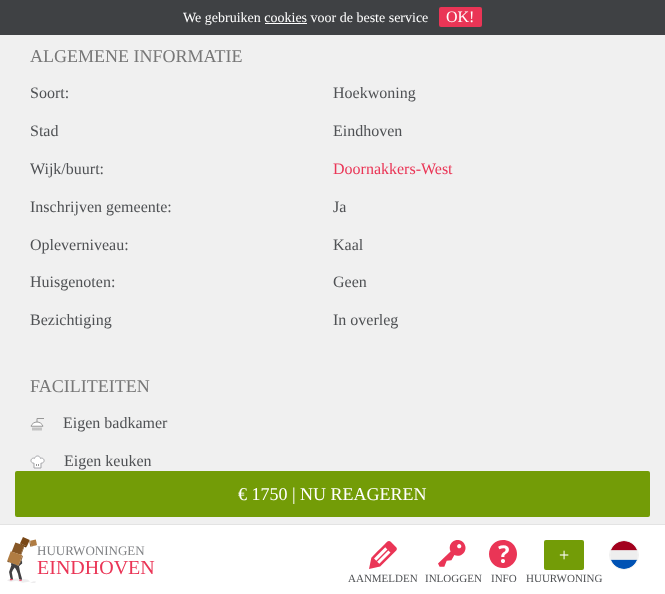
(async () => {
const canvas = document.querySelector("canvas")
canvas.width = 665
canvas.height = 594
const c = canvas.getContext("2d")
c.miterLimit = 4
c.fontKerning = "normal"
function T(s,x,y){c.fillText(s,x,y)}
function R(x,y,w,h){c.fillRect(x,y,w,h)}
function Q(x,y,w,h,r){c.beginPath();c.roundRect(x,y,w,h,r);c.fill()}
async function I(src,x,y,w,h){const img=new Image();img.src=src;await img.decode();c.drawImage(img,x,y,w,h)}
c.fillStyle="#f0f0f0"
R(0,0,665,594)
c.fillStyle="#3f4144"
R(0,0,665,35)
c.font="14px Liberation Serif"
c.fillStyle="#fff"
T("We gebruiken cookies voor de beste service",183,22)
c.fillStyle="#ea3556"
Q(439,7,43,20,2)
c.font="16px Liberation Serif"
c.fillStyle="#fff"
T("OK!",446,22)
R(265,23,42,1)
c.font="18px Liberation Serif"
c.fillStyle="#777"
T("ALGEMENE INFORMATIE",30,62)
c.font="16px Liberation Serif"
c.fillStyle="#4f5154"
T("Soort:",30,98)
T("Hoekwoning",333,98)
T("Stad",30,136)
T("Eindhoven",333,136)
T("Wijk/buurt:",30,174)
c.fillStyle="#ea3556"
T("Doornakkers-West",333,174)
c.fillStyle="#4f5154"
T("Inschrijven gemeente:",30,212)
T("Ja",333,212)
T("Opleverniveau:",30,250)
T("Kaal",333,250)
T("Huisgenoten:",30,287)
T("Geen",333,287)
T("Bezichtiging",30,325)
T("In overleg",333,325)
c.font="18px Liberation Serif"
c.fillStyle="#777"
T("FACILITEITEN",30,392)
await I("1.png",30,418,14,13)
c.font="16px Liberation Serif"
c.fillStyle="#4f5154"
T("Eigen badkamer",63,428)
await I("2.png",30,455,15,14)
T("Eigen keuken",64,466)
c.fillStyle="#739c07"
Q(15,471,635,46,2)
c.font="18px Liberation Serif"
c.fillStyle="#fff"
T("€ 1750 | NU REAGEREN",238,500)
R(0,525,665,69)
c.fillStyle="#e3e3e3"
R(0,524,665,1)
await I("3.png",7,537,30,46)
c.font="13px Liberation Serif"
c.fillStyle="#808285"
T("HUURWONINGEN",37,555)
c.font="20px Liberation Serif"
c.fillStyle="#ea3556"
T("EINDHOVEN",37,574)
await I("4.png",369,541,28,28)
c.font="11px Liberation Serif"
c.fillStyle="#4f5154"
T("AANMELDEN",348,582)
await I("5.png",438,540,28,27)
T("INLOGGEN",425,582)
await I("6.png",489,540,28,28)
T("INFO",491,582)
c.fillStyle="#739c07"
Q(544,540,40,30,2)
c.font="18px Liberation Serif"
c.fillStyle="#fff"
T("+",559,561)
c.font="11px Liberation Serif"
c.fillStyle="#4f5154"
T("HUURWONING",526,582)
c.beginPath()
c.arc(624,555,14.5,0,7)
c.strokeStyle="#f0f0f0"
c.stroke()
await I("7.png",610,541,28,28)
})()
